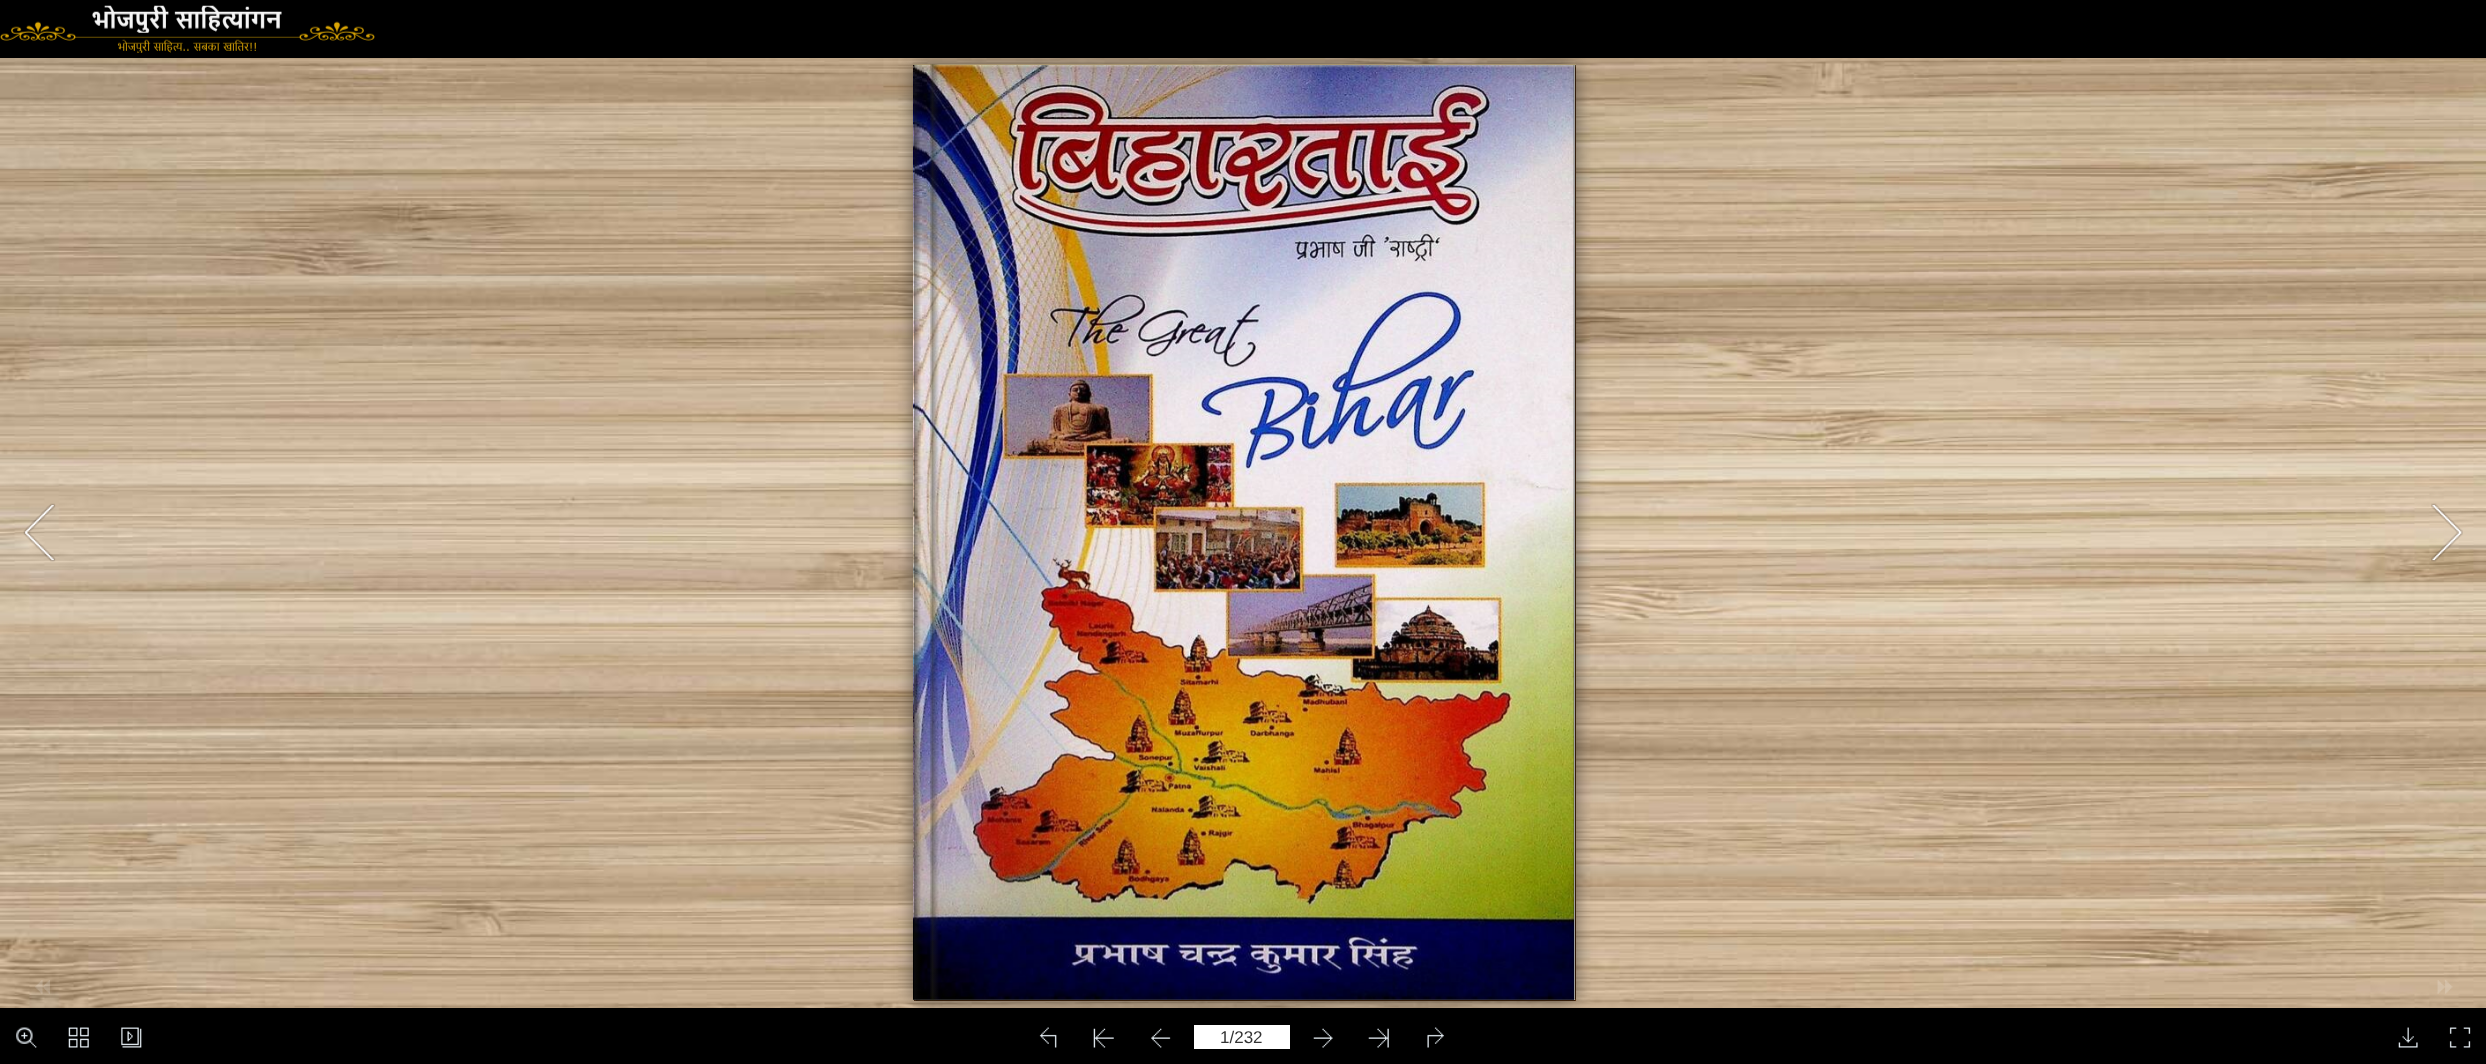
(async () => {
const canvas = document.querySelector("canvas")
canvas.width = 2486
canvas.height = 1064
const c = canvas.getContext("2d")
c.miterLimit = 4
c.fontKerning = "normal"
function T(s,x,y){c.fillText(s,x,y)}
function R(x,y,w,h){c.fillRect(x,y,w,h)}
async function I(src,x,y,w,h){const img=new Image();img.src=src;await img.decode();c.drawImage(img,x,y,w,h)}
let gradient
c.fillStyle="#fff"
R(0,0,2486,1064)
await I("4.png",0,58,2486,950)
await I("3.png",913,999,1,1)
c.fillStyle="#282828b3"
c.filter="blur(9.5px)"
c.beginPath()
c.rect(914,65,661,935)
c.fill()
c.filter="none"
c.fillStyle="#000"
R(0,0,2486,58)
await I("1.png",0,5,375,48)
c.fillStyle="#572f0d"
R(914,64,662,937)
c.fillStyle="#e8e8e8"
R(914,65,661,935)
await I("2.png",913,65,661,935)
gradient = c.createLinearGradient(913,533,921,533)
gradient.addColorStop(0,"#14141480")
gradient.addColorStop(1,"#14141400")
c.fillStyle = gradient
R(914,64,7,937)
gradient = c.createLinearGradient(1244,64,1244,68)
gradient.addColorStop(0,"#f0f0c899")
gradient.addColorStop(1,"#f0f0c800")
c.fillStyle = gradient
R(914,64,662,4)
gradient = c.createLinearGradient(1245,1001,1245,998)
gradient.addColorStop(0,"#00000080")
gradient.addColorStop(1,"#00000000")
c.fillStyle = gradient
R(916,998,659,3)
gradient = c.createLinearGradient(929,533,939,533)
gradient.addColorStop(0,"#28281400")
gradient.addColorStop(.35,"#28281466")
gradient.addColorStop(1,"#28281400")
c.fillStyle = gradient
R(930,64,9,937)
gradient = c.createLinearGradient(1576,532,1572,532)
gradient.addColorStop(0,"#00000080")
gradient.addColorStop(1,"#00000000")
c.fillStyle = gradient
R(1573,65,3,934)
await I("5.png",23,503,33,59)
await I("6.png",2431,503,32,59)
await I("7.png",35,980,15,14)
await I("8.png",2437,980,16,14)
c.fillStyle="#000"
R(0,1008,2486,56)
await I("9.png",16,1027,21,21)
await I("10.png",68,1027,21,21)
await I("11.png",121,1027,21,21)
await I("12.png",1039,1027,18,21)
await I("13.png",1093,1028,21,20)
await I("14.png",1151,1028,20,20)
c.fillStyle="#fff"
R(1194,1025,96,24)
c.font="17px Liberation Sans"
c.fillStyle="#333"
T("1/232",1220,1043)
await I("15.png",1313,1028,20,20)
await I("16.png",1368,1028,21,20)
await I("17.png",1427,1027,17,21)
await I("18.png",2398,1027,20,21)
await I("19.png",2449,1027,22,21)
})()
